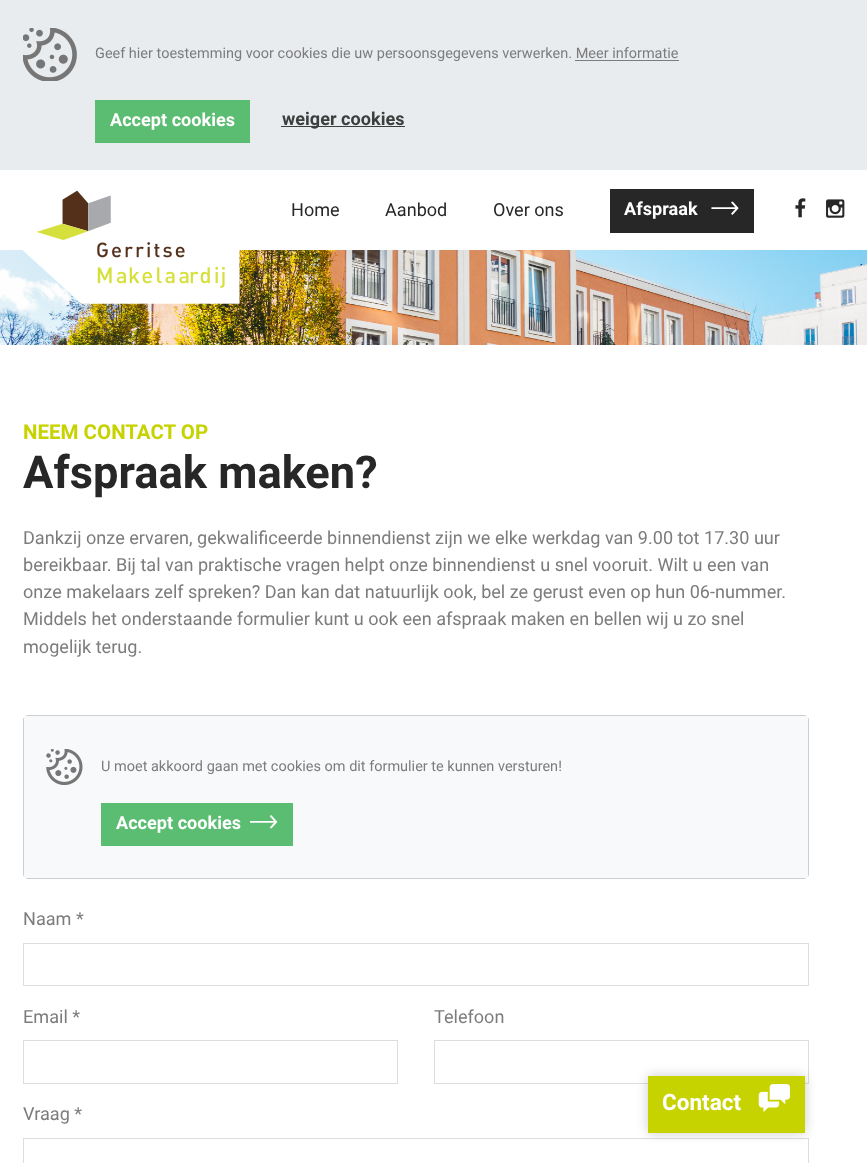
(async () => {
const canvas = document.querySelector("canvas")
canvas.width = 867
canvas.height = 1163
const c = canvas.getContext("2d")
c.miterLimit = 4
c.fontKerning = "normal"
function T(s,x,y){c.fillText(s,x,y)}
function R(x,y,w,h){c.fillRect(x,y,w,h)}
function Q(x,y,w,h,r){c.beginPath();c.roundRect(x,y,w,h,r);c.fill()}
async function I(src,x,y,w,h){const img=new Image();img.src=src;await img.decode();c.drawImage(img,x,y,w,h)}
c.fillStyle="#fff"
R(0,0,867,1163)
c.fillStyle="#e9ecef"
R(0,0,867,170)
await I("1.png",23,28,54,53)
c.font="14.5px Roboto"
c.fillStyle="#7c7c7c"
T("Geef hier toestemming voor cookies die uw persoonsgegevens verwerken. Meer informatie",95,58)
R(575,60,104,1)
c.fillStyle="#5bbd72"
R(95,100,155,43)
c.font="bold 18.1px Roboto"
c.fillStyle="#fff"
T("Accept cookies",110,126)
c.fillStyle="#3d3e3e"
R(281,126,124,1)
T("weiger cookies",282,125)
await I("6.png",0,250,867,95)
await I("2.png",23,190,217,114)
c.font="18.1px Roboto"
c.fillStyle="#272727"
T("Home",291,216)
T("Aanbod",385,216)
T("Over ons",493,216)
R(610,189,144,44)
c.font="bold 18.1px Roboto"
c.fillStyle="#fff"
T("Afspraak",624,215)
await I("3.png",711,201,28,14)
await I("4.png",795,198,11,20)
await I("5.png",826,199,19,19)
c.font="bold 20.5px Roboto"
c.fillStyle="#c7d300"
T("NEEM CONTACT OP",23,439)
c.font="bold 45.25px Roboto"
c.fillStyle="#272727"
T("Afspraak maken?",23,488)
c.font="18.1px Roboto"
c.fillStyle="#7c7c7c"
T("Dankzij onze ervaren, gekwalificeerde binnendienst zijn we elke werkdag van 9.00 tot 17.30 uur",23,544)
T("bereikbaar. Bij tal van praktische vragen helpt onze binnendienst u snel vooruit. Wilt u een van",23,571)
T("onze makelaars zelf spreken? Dan kan dat natuurlijk ook, bel ze gerust even op hun 06-nummer.",23,598)
T("Middels het onderstaande formulier kunt u ook een afspraak maken en bellen wij u zo snel",23,625)
T("mogelijk terug.",23,653)
c.fillStyle="#e9ecef"
Q(23,715,786,164,5)
c.beginPath()
c.roundRect(23.5,715.5,785,163,4.5)
c.strokeStyle="#0000001f"
c.stroke()
c.fillStyle="#f8f9fa"
R(24,716,784,162)
await I("7.png",46,749,37,36)
c.font="14.5px Roboto"
c.fillStyle="#7c7c7c"
T("U moet akkoord gaan met cookies om dit formulier te kunnen versturen!",101,771)
c.fillStyle="#5bbd72"
R(101,803,192,43)
c.font="bold 18.1px Roboto"
c.fillStyle="#fff"
T("Accept cookies",116,829)
await I("8.png",250,815,28,14)
c.font="18.1px Roboto"
c.fillStyle="#7c7c7c"
T("Naam *",23,925)
c.strokeStyle="#ddd"
c.strokeRect(23.5,943.5,785,42)
T("Email *",23,1023)
c.strokeRect(23.5,1040.5,374,43)
T("Telefoon",434,1023)
c.strokeRect(434.5,1040.5,374,43)
T("Vraag *",23,1120)
c.strokeRect(23.5,1138.5,785,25)
c.fillStyle="#00000033"
c.filter="blur(6px)"
c.beginPath()
c.rect(648,1076,157,57)
c.fill()
c.filter="none"
c.fillStyle="#c7d300"
R(648,1076,157,57)
c.font="bold 22.5px Roboto"
c.fillStyle="#fff"
T("Contact",662,1110)
await I("9.png",758,1084,32,28)
})()
